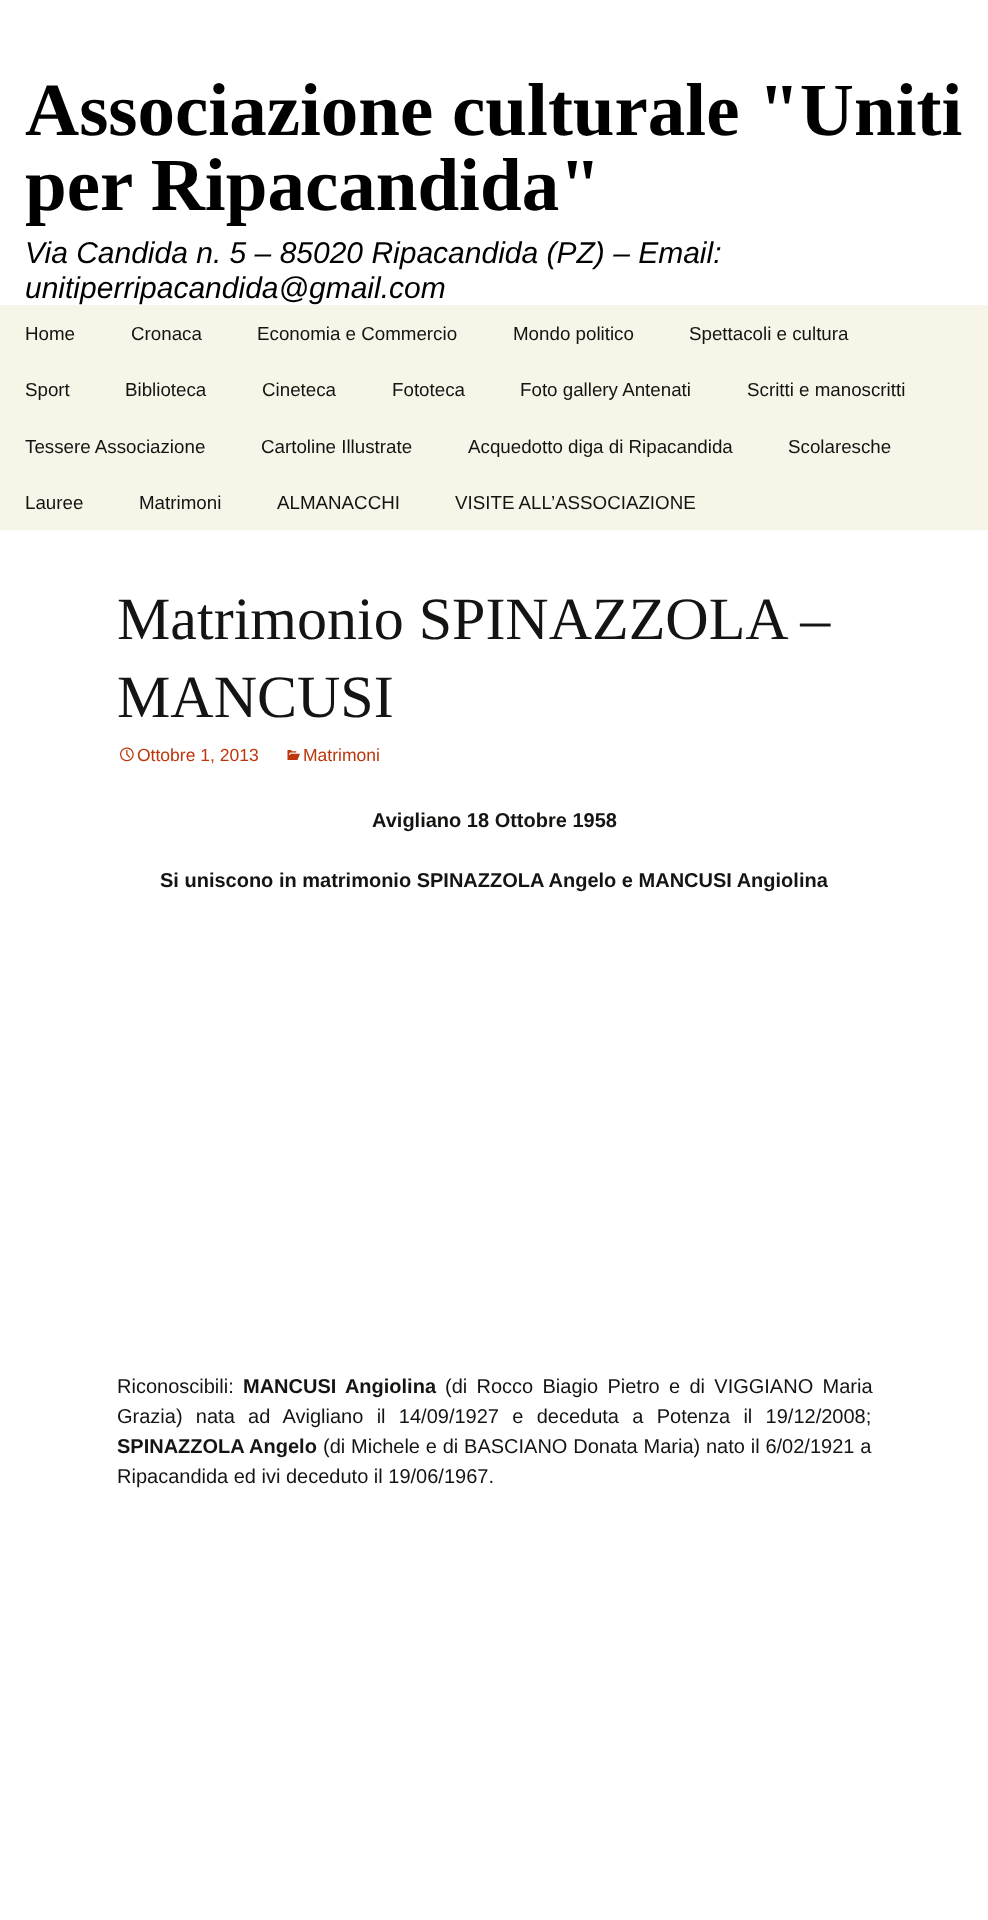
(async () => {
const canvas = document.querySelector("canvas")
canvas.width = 988
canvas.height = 1920
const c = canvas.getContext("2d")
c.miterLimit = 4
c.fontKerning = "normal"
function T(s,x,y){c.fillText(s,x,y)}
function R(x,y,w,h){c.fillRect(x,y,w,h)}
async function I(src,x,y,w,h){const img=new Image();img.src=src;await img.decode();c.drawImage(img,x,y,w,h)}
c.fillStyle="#fff"
R(0,0,988,1920)
c.font="bold 75px Liberation Serif"
c.fillStyle="#000"
T("Associazione culturale \"Uniti",25,135)
T("per Ripacandida\"",25,210)
c.font="italic 30px Liberation Sans"
T("Via Candida n. 5 – 85020 Ripacandida (PZ) – Email:",25,263)
T("unitiperripacandida@gmail.com",25,298)
c.fillStyle="#f7f5e7"
R(0,305,988,225)
c.font="18.75px Liberation Sans"
c.fillStyle="#141412"
T("Home",25,340)
T("Cronaca",131,340)
T("Economia e Commercio",257,340)
T("Mondo politico",513,340)
T("Spettacoli e cultura",689,340)
T("Sport",25,396)
T("Biblioteca",125,396)
T("Cineteca",262,396)
T("Fototeca",392,396)
T("Foto gallery Antenati",520,396)
T("Scritti e manoscritti",747,396)
T("Tessere Associazione",25,453)
T("Cartoline Illustrate",261,453)
T("Acquedotto diga di Ripacandida",468,453)
T("Scolaresche",788,453)
T("Lauree",25,509)
T("Matrimoni",139,509)
T("ALMANACCHI",277,509)
T("VISITE ALL’ASSOCIAZIONE",455,509)
c.font="60px Liberation Serif"
T("Matrimonio SPINAZZOLA –",117,639)
T("MANCUSI",117,717)
await I("1.png",120,747,14,15)
c.font="17.5px Liberation Sans"
c.fillStyle="#bc360a"
T("Ottobre 1, 2013",137,761)
await I("2.png",287,750,13,10)
T("Matrimoni",303,761)
c.font="bold 20px Liberation Sans"
c.fillStyle="#141412"
T("Avigliano 18 Ottobre 1958",372,827)
T("Si uniscono in matrimonio SPINAZZOLA Angelo e MANCUSI Angiolina",160,887)
c.font="20px Liberation Sans"
T("Riconoscibili:",117,1393)
c.wordSpacing="3.75px"
c.font="bold 20px Liberation Sans"
T("MANCUSI Angiolina",243,1393)
c.font="20px Liberation Sans"
T("(di Rocco Biagio Pietro e di VIGGIANO Maria",445,1393)
c.wordSpacing="7.75px"
T("Grazia) nata ad Avigliano il 14/09/1927 e deceduta a Potenza il 19/12/2008;",117,1423)
c.wordSpacing="0.25px"
c.font="bold 20px Liberation Sans"
T("SPINAZZOLA Angelo",117,1453)
c.font="20px Liberation Sans"
T("(di Michele e di BASCIANO Donata Maria) nato il 6/02/1921 a",323,1453)
c.wordSpacing="0px"
T("Ripacandida ed ivi deceduto il 19/06/1967.",117,1483)
})()
